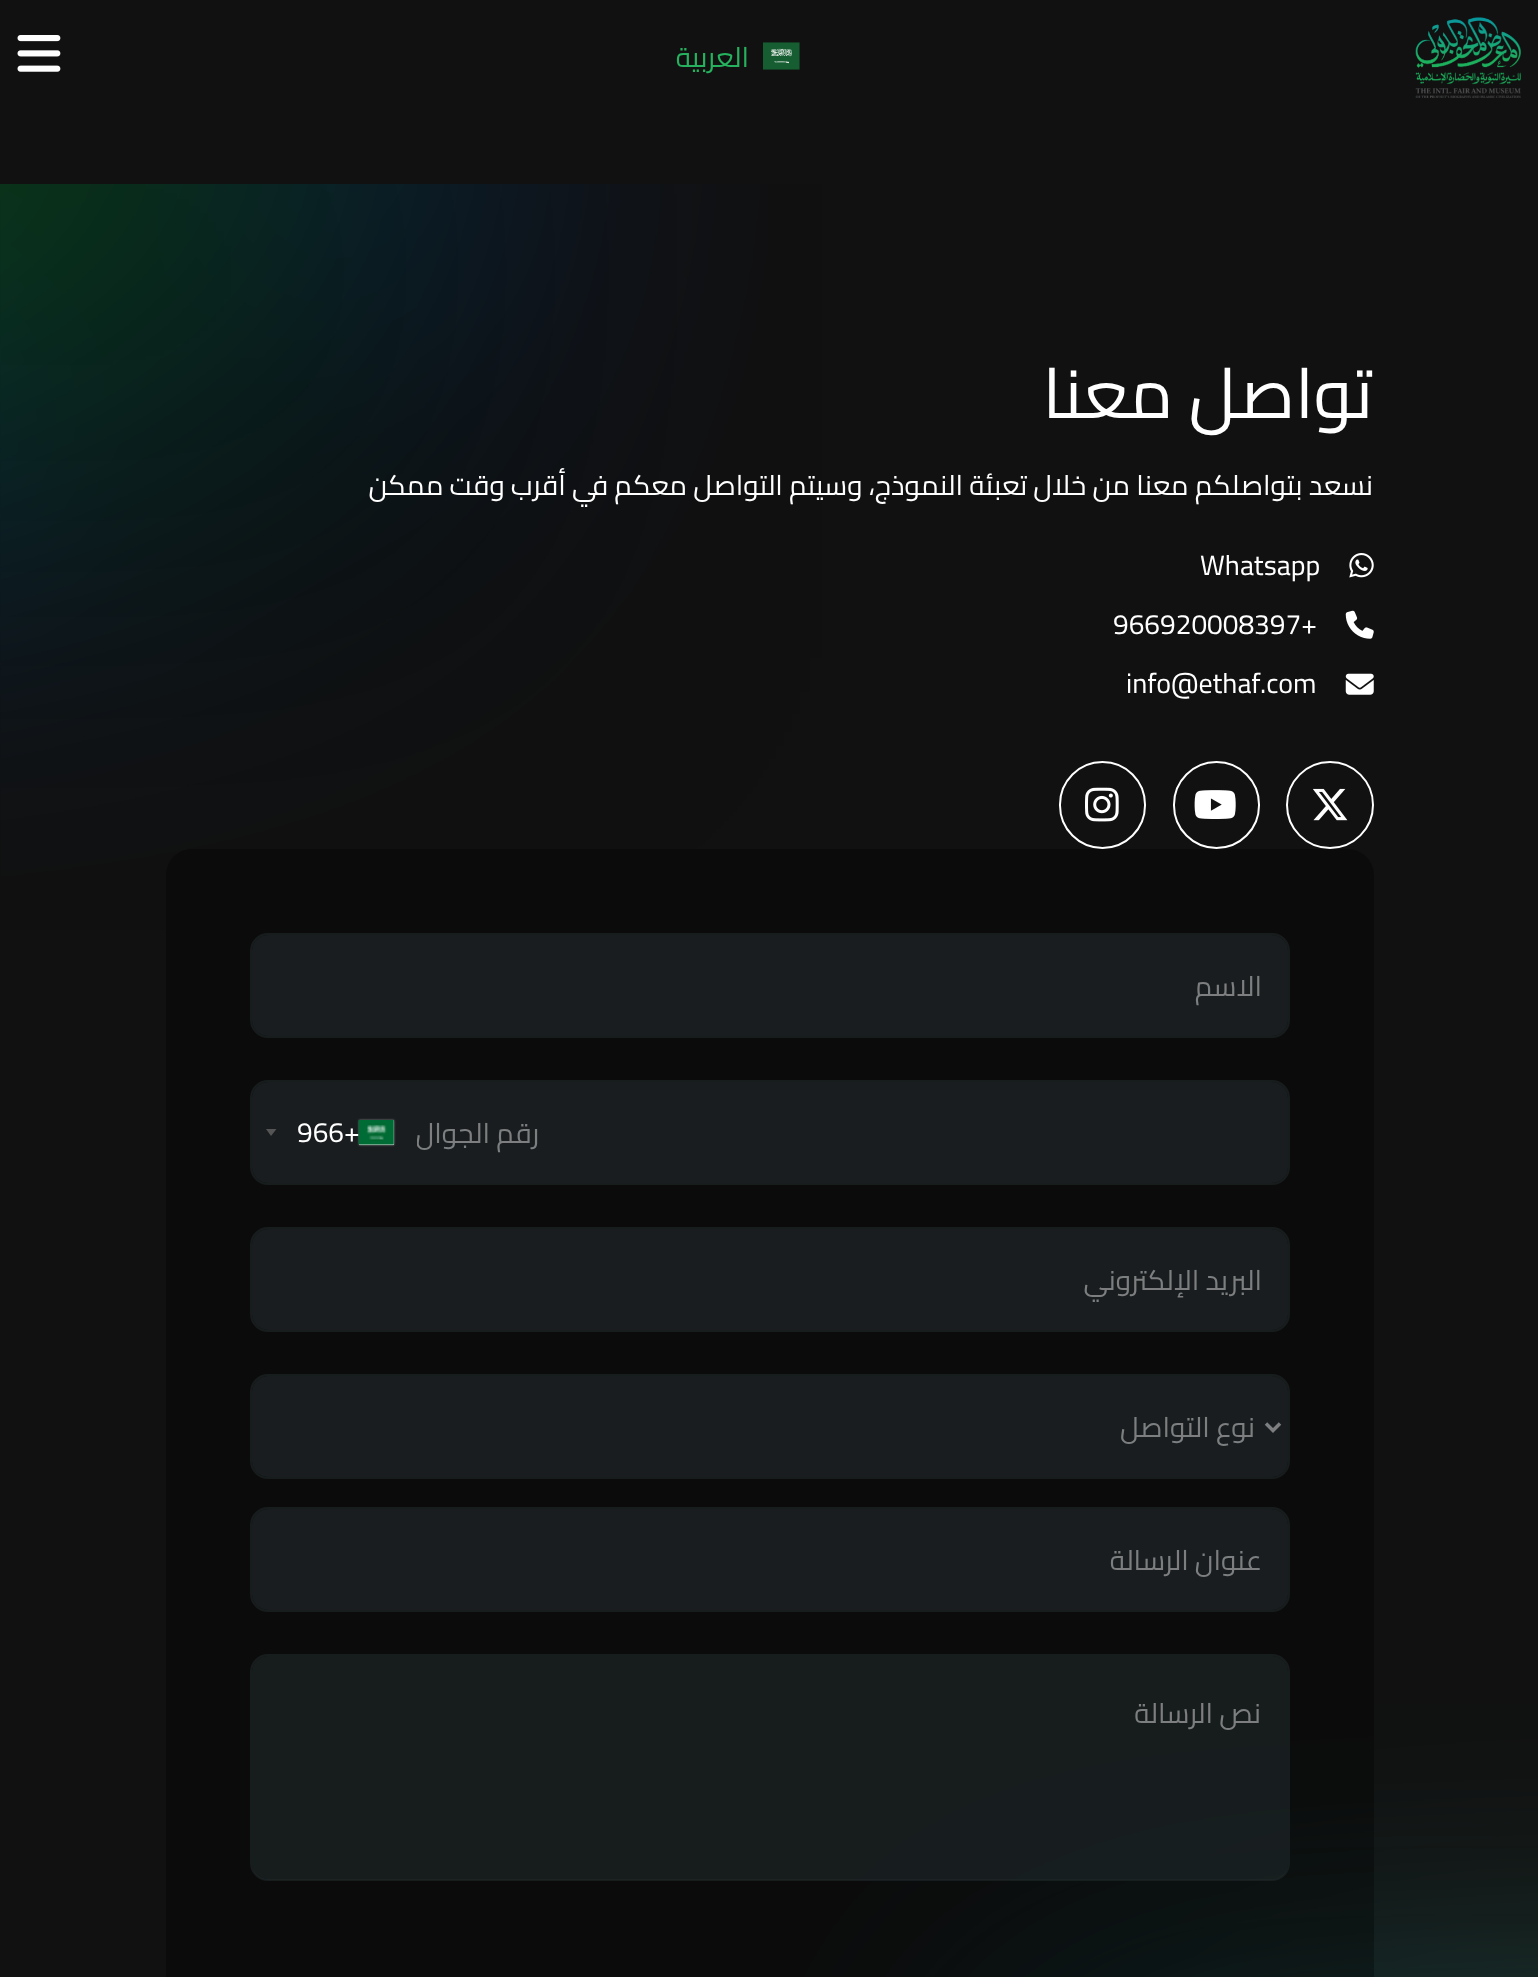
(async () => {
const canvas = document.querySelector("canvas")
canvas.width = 1538
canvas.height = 1977
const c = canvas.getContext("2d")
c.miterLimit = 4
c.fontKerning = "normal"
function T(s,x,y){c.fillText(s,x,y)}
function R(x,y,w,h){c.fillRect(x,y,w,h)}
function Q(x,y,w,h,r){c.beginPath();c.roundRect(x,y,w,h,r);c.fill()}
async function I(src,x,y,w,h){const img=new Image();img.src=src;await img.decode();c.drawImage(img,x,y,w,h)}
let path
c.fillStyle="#111"
R(0,0,1538,1977)
await I("1.png",1415,17,106,81)
await I("2.png",763,42,37,28)
c.direction="rtl"
c.font="28px Cairo"
c.fillStyle="#25b15d"
T("العربية",749,67)
await I("3.png",17,35,44,37)
await I("4.png",0,184,1538,1793)
c.font="70px Cairo"
c.fillStyle="#fff"
T("تواصل معنا",1373,418)
c.font="28px Cairo"
T("نسعد بتواصلكم معنا من خلال تعبئة النموذج، وسيتم التواصل معكم في أقرب وقت ممكن",1373,495)
await I("5.png",1349,553,25,25)
c.direction="ltr"
T("Whatsapp",1200,575)
await I("6.png",1345,610,29,29)
T("966920008397+",1113,634)
await I("7.png",1345,673,29,22)
T("info@ethaf.com",1126,693)
c.beginPath()
c.arc(1330,805,43,0,7)
c.strokeStyle="#fff"
c.lineWidth=2
c.stroke()
await I("8.png",1313,788,35,33)
c.beginPath()
c.roundRect(1174,762,85,86,42.5)
c.stroke()
await I("9.png",1194,790,42,29)
c.beginPath()
c.roundRect(1060,762,85,86,42.5)
c.stroke()
await I("10.png",1085,787,34,35)
c.fillStyle="#0000004d"
Q(166,849,1208,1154,26)
c.fillStyle="#191d1f"
Q(252,935,1036,101,16)
c.beginPath()
c.roundRect(251,934,1038,103,17)
c.strokeStyle="#202729a3"
c.stroke()
c.direction="rtl"
c.fillStyle="#7c7e7f"
T("الاسم",1262,996)
c.fillStyle="#191d1f"
Q(252,1082,1036,101,16)
c.beginPath()
c.roundRect(251,1081,1038,103,17)
c.stroke()
c.save()
c.beginPath()
c.rect(417,1106,861,53)
c.clip()
c.fillStyle="#7c7e7f"
T("رقم الجوال",539,1143)
c.restore()
c.fillStyle="#888"
c.filter="blur(1px)"
c.beginPath()
c.rect(359,1120,35,25)
c.fill()
c.filter="none"
c.fillStyle="#dbdbdb"
R(359,1120,35,25)
await I("11.png",358,1120,36,25)
c.direction="ltr"
c.fillStyle="#fff"
T("966+",297,1142)
c.fillStyle="#555"
path = new Path2D("M266 1129h10.5l-5.5 7z")
c.fill(path)
c.fillStyle="#191d1f"
Q(252,1229,1036,101,16)
c.beginPath()
c.roundRect(251,1228,1038,103,17)
c.stroke()
c.direction="rtl"
c.fillStyle="#7c7e7f"
T("البريد الإلكتروني",1262,1290)
c.fillStyle="#191d1f"
Q(252,1376,1036,101,16)
c.beginPath()
c.roundRect(251,1375,1038,103,17)
c.stroke()
path = new Path2D("M1266 1423.5l7 7l7-7")
c.strokeStyle="#7c7e7f"
c.lineWidth=3.5
c.stroke(path)
c.fillStyle="#7c7e7f"
T("نوع التواصل",1255,1437)
c.fillStyle="#191d1f"
Q(252,1509,1036,101,16)
c.beginPath()
c.roundRect(251,1508,1038,103,17)
c.strokeStyle="#202729a3"
c.lineWidth=2
c.stroke()
c.fillStyle="#7c7e7f"
T("عنوان الرسالة",1262,1570)
c.fillStyle="#202729a3"
Q(252,1656,1036,224,16)
c.beginPath()
c.roundRect(251,1655,1038,225,17)
c.stroke()
c.fillStyle="#7c7e7f"
T("نص الرسالة",1261,1723)
})()
